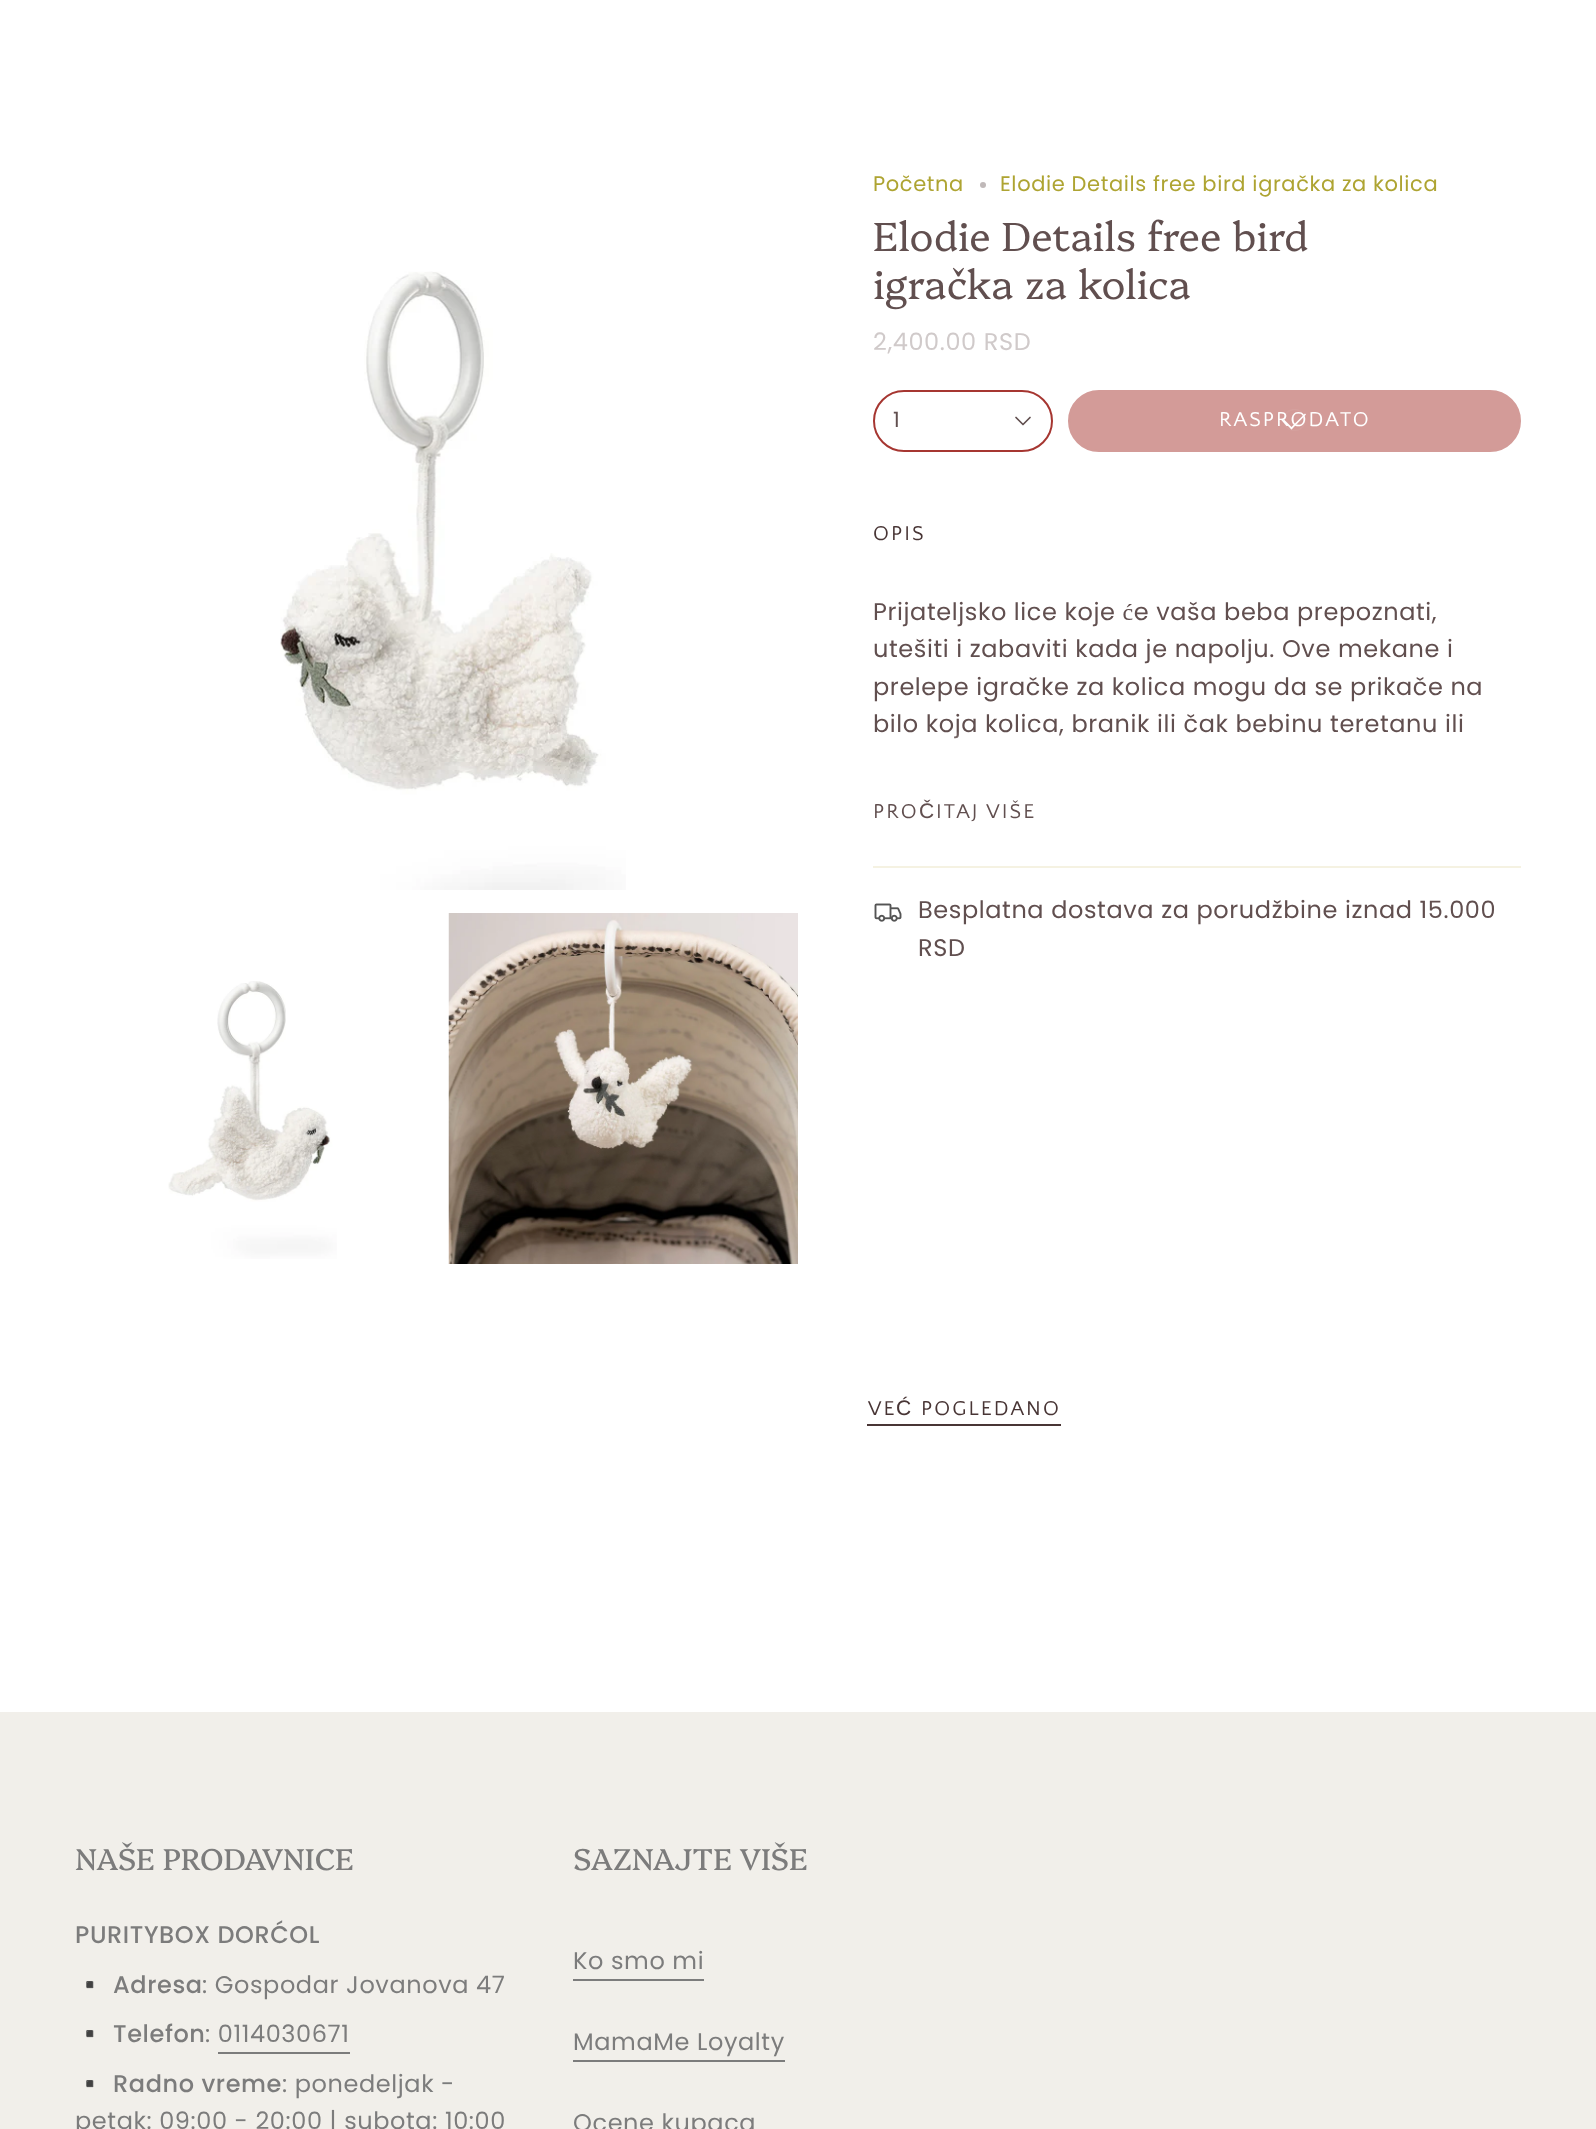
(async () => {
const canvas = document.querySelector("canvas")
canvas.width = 1596
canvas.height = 2129
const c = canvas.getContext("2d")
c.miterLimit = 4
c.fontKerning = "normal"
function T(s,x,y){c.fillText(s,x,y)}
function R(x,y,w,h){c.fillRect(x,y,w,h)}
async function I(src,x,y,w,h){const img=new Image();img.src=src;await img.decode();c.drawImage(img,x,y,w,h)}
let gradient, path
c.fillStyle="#fff"
R(0,0,1596,2129)
await I("1.png",280,271,346,619)
await I("2.png",168,981,169,278)
await I("3.png",448,913,350,351)
c.letterSpacing="0.6px"
c.font="21px Poppins"
c.fillStyle="#aea432"
T("Početna",873,191)
c.fillStyle="#c0b9b9"
c.beginPath()
c.arc(983,185,3,0,7)
c.fill()
c.fillStyle="#aea432"
T("Elodie Details free bird igračka za kolica",1000,191)
c.letterSpacing="0px"
c.font="300 40.5px Platypi"
c.fillStyle="#614f4f"
T("Elodie Details free bird",873,251)
T("igračka za kolica",873,299)
c.letterSpacing="0.6px"
c.font="24px Poppins"
c.fillStyle="#d0caca"
T("2,400.00 RSD",873,350)
c.beginPath()
c.roundRect(874,391,178,60,30)
c.strokeStyle="#a63631"
c.lineWidth=2
c.stroke()
c.letterSpacing="0px"
c.font="21px Poppins"
c.fillStyle="#614f4f"
T("1",893,427)
path = new Path2D("M1016 417.5l7 7l7-7")
c.strokeStyle="#614f4f"
c.lineWidth=1.7
c.lineCap="round"
c.lineJoin="round"
c.stroke(path)
c.fillStyle="#d39b98"
c.beginPath()
c.roundRect(1069,391,451,60,30)
c.fill()
c.strokeStyle="#d39b98"
c.lineWidth=2
c.lineJoin="miter"
c.stroke()
c.fillStyle="#fff"
path = new Path2D("M1290.5 428l14.5-14.5l1 1l-14.5 15z")
c.fill(path)
path = new Path2D("M1283 421l1-1.5l8.5 8.5l-1 1.5z")
c.fill(path)
c.beginPath()
c.arc(1294.5,420,10.5,0,7)
c.strokeStyle="#ffffff0d"
c.lineWidth=1.5
c.stroke()
c.letterSpacing="2.1px"
c.font="21px Quattrocento Sans"
T("RASPRODATO",1219,426)
c.fillStyle="#483535"
T("OPIS",873,540)
c.letterSpacing="0.6px"
c.font="24px Poppins"
c.fillStyle="#614f4f"
T("Prijateljsko lice koje će vaša beba prepoznati,",873,620)
T("utešiti i zabaviti kada je napolju. Ove mekane i",873,657)
T("prelepe igračke za kolica mogu da se prikače na",873,695)
T("bilo koja kolica, branik ili čak bebinu teretanu ili",873,732)
gradient = c.createLinearGradient(1186,731,1186,776)
gradient.addColorStop(0,"#ffffff00")
gradient.addColorStop(1,"#fff")
c.fillStyle = gradient
R(954,732,108,7)
c.letterSpacing="2.1px"
c.font="21px Quattrocento Sans"
c.fillStyle="#614f4f"
T("PRO",873,818)
c.font="21px Liberation Sans"
T("Č",919,818)
c.font="21px Quattrocento Sans"
T("ITAJ VIŠE",936,818)
c.fillStyle="#f5f2e2"
R(873,866,648,2)
await I("4.png",874,903,28,19)
c.letterSpacing="0.6px"
c.font="24px Poppins"
c.fillStyle="#614f4f"
T("Besplatna dostava za porudžbine iznad 15.000",918,918)
T("RSD",918,956)
c.letterSpacing="2.1px"
c.font="21px Quattrocento Sans"
c.fillStyle="#483535"
T("VE",868,1415)
c.font="21px Liberation Sans"
T("Ć",896,1415)
c.font="21px Quattrocento Sans"
T("POGLEDANO",921,1415)
R(867,1424,194,2)
c.fillStyle="#f1efea"
R(0,1712,1596,417)
c.letterSpacing="0px"
c.font="30px Platypi"
c.fillStyle="#7c7c7c"
T("NAŠE PRODAVNICE",75,1870)
c.letterSpacing="0.6px"
c.font="500 24px Poppins"
T("PURITYBOX DORĆOL",75,1943)
c.font="24px Noto Color Emoji"
T("▪️",75,1993)
c.font="500 24px Poppins"
T("Adresa",113,1993)
c.font="24px Poppins"
T(": Gospodar Jovanova 47",202,1993)
c.font="24px Noto Color Emoji"
T("▪️",75,2042)
c.font="500 24px Poppins"
T("Telefon",113,2042)
c.font="24px Poppins"
T(": 0114030671",205,2042)
R(218,2052,132,2)
c.font="24px Noto Color Emoji"
T("▪️",75,2092)
c.font="500 24px Poppins"
T("Radno vreme",113,2092)
c.font="24px Poppins"
T(": ponedeljak -",282,2092)
T("petak: 09:00 - 20:00 | subota: 10:00",75,2129)
c.letterSpacing="0px"
c.font="30px Platypi"
T("SAZNAJTE VIŠE",573,1870)
c.letterSpacing="0.6px"
c.font="24px Poppins"
T("Ko smo mi",573,1969)
R(573,1979,131,2)
T("MamaMe Loyalty",573,2050)
R(573,2060,212,2)
T("Ocene kupaca",573,2131)
})()
